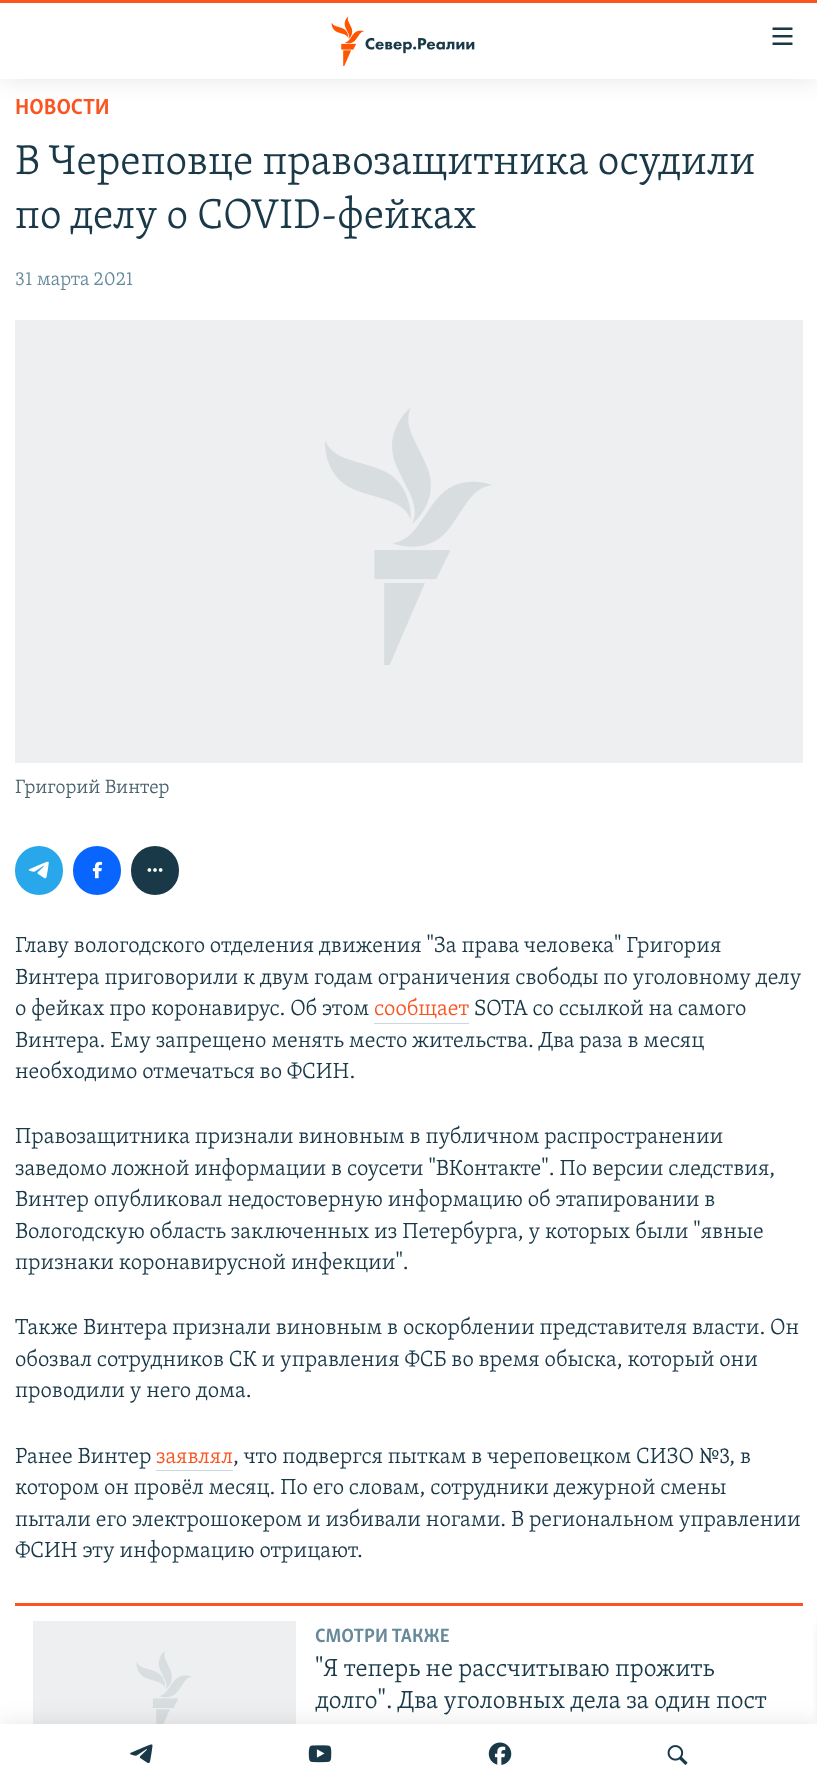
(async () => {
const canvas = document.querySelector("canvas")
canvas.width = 817
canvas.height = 1786
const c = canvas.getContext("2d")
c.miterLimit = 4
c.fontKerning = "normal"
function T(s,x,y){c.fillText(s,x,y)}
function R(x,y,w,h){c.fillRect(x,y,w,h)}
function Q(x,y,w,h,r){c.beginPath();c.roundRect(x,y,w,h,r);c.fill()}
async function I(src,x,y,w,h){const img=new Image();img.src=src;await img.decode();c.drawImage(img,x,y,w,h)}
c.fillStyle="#fff"
R(0,0,817,1786)
c.fillStyle="#0000001a"
c.filter="blur(12.5px)"
c.beginPath()
c.rect(0,0,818,79)
c.fill()
c.filter="none"
c.fillStyle="#fff"
R(0,3,817,76)
c.fillStyle="#fa5420"
R(0,0,817,3)
await I("1.png",331,16,144,50)
await I("2.png",772,27,21,18)
c.fillStyle="#edeff0"
R(33,1621,263,103)
await I("11.png",136,1651,56,73)
c.fillStyle="#0000001a"
c.filter="blur(12.5px)"
c.beginPath()
c.rect(0,1724,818,62)
c.fill()
c.filter="none"
c.fillStyle="#000000d9"
c.filter="blur(6px)"
c.beginPath()
c.roundRect(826,1623,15,101,6)
c.fill()
c.filter="none"
c.fillStyle="#fff"
R(0,1724,817,62)
await I("3.png",130,1744,23,19)
await I("4.png",308,1745,24,18)
await I("5.png",488,1742,24,23)
await I("6.png",667,1745,21,20)
c.font="bold 22.5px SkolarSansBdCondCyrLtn"
c.fillStyle="#fa5420"
T("НОВОСТИ",15,114)
c.font="300 42.75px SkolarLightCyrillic"
c.fillStyle="#1a3948"
T("В Череповце правозащитника осудили",15,174)
T("по делу о COVID-фейках",15,228)
c.font="300 19.75px SkolarLightCyrillic"
c.fillStyle="#678a9b"
T("31 марта 2021",15,285)
c.fillStyle="#edeff0"
R(15,320,788,443)
await I("7.png",325,408,167,257)
c.fillStyle="#48616d"
T("Григорий Винтер",15,793)
c.fillStyle="#28a8ea"
Q(15,846,48,49,24)
await I("8.png",28,861,21,18)
c.fillStyle="#0866ff"
Q(73,846,48,49,24)
await I("9.png",92,861,11,18)
c.fillStyle="#1a3948"
Q(131,846,48,49,24)
await I("10.png",147,868,16,4)
c.font="300 22.5px SkolarLightCyrillic"
T("Главу вологодского отделения движения \"За права человека\" Григория",15,952)
T("Винтера приговорили к двум годам ограничения свободы по уголовному делу",15,984)
T("о фейках про коронавирус. Об этом",15,1015)
c.fillStyle="#fa5420"
T("сообщает",374,1015)
c.fillStyle="#ccd8de"
R(374,1023,95,1)
c.fillStyle="#1a3948"
T("SOTA со ссылкой на самого",474,1015)
T("Винтера. Ему запрещено менять место жительства. Два раза в месяц",15,1047)
T("необходимо отмечаться во ФСИН.",15,1078)
T("Правозащитника признали виновным в публичном распространении",15,1143)
T("заведомо ложной информации в соусети \"ВКонтакте\". По версии следствия,",15,1175)
T("Винтер опубликовал недостоверную информацию об этапировании в",15,1206)
T("Вологодскую область заключенных из Петербурга, у которых были \"явные",15,1238)
T("признаки коронавирусной инфекции\".",15,1269)
T("Также Винтера признали виновным в оскорблении представителя власти. Он",15,1334)
T("обозвал сотрудников СК и управления ФСБ во время обыска, который они",15,1366)
T("проводили у него дома.",15,1397)
T("Ранее Винтер",15,1463)
c.fillStyle="#fa5420"
T("заявлял",156,1463)
c.fillStyle="#ccd8de"
R(156,1470,77,1)
c.fillStyle="#1a3948"
T(", что подвергся пыткам в череповецком СИЗО №3, в",233,1463)
T("котором он провёл месяц. По его словам, сотрудники дежурной смены",15,1494)
T("пытали его электрошокером и избивали ногами. В региональном управлении",15,1526)
T("ФСИН эту информацию отрицают.",15,1557)
c.fillStyle="#fa5420"
R(15,1603,788,3)
c.font="bold 19.75px SkolarSansBdCondCyrLtn"
c.fillStyle="#678a9b"
T("СМОТРИ ТАКЖЕ",315,1642)
c.font="300 25.3px SkolarLightCyrillic"
c.fillStyle="#1a3948"
T("\"Я теперь не рассчитываю прожить",315,1676)
T("долго\". Два уголовных дела за один пост",315,1708)
})()
